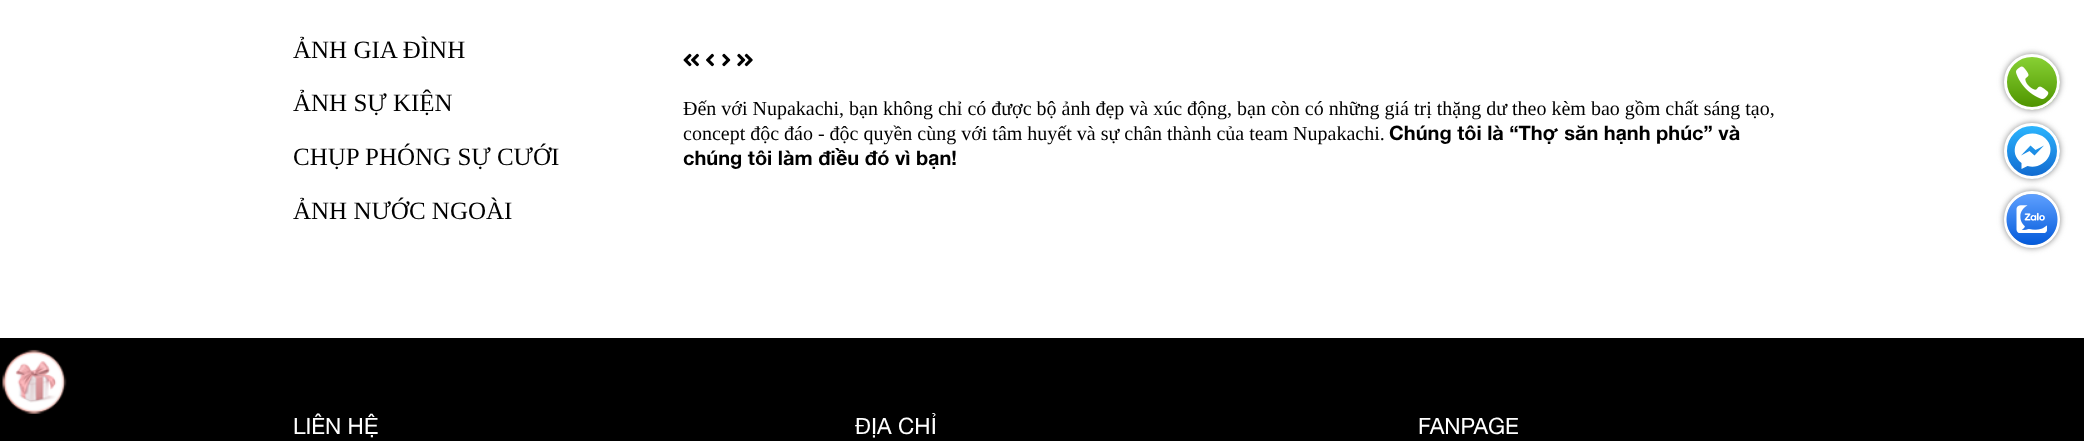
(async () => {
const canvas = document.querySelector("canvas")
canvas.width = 2084
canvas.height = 441
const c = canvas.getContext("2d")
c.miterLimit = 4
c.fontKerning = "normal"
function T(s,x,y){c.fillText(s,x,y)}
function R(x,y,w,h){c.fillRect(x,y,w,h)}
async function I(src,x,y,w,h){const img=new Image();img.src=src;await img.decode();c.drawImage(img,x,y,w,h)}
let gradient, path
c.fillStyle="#fff"
R(0,0,2084,441)
c.font="25px Liberation Serif"
c.fillStyle="#000"
T("ẢNH GIA ĐÌNH",293,58)
T("ẢNH SỰ KIỆN",293,111)
T("CHỤP PHÓNG SỰ CƯỚI",293,165)
T("ẢNH NƯỚC NGOÀI",293,219)
await I("1.png",683,53,16,14)
await I("2.png",706,53,8,14)
await I("3.png",722,53,9,14)
await I("4.png",737,53,16,14)
c.font="20px Liberation Serif"
T("Đến với Nupakachi, bạn không chỉ có được bộ ảnh đẹp và xúc động, bạn còn có những giá trị thặng dư theo kèm bao gồm chất sáng tạo,",683,115)
T("concept độc đáo - độc quyền cùng với tâm huyết và sự chân thành của team Nupakachi.",683,140)
c.font="bold 20px Helvetica Neue"
T("Chúng tôi là “Thợ săn hạnh phúc” và",1389,140)
T("chúng tôi làm điều đó vì bạn!",683,165)
R(0,338,2084,103)
await I("5.png",2,349,65,65)
c.font="22.5px Helvetica Neue"
c.fillStyle="#fff"
T("LIÊN HỆ",293,434)
T("ĐỊA CHỈ",855,434)
T("FANPAGE",1418,434)
c.fillStyle="#888"
c.filter="blur(3px)"
c.beginPath()
c.roundRect(2004,54,56,56,28)
c.fill()
c.filter="none"
await I("6.png",2005,55,55,55)
c.beginPath()
c.arc(2032,82,26.5,0,7)
c.strokeStyle="#fff"
c.lineWidth=3
c.stroke()
c.filter="blur(3px)"
c.beginPath()
c.roundRect(2004,123,56,56,28)
c.fill()
c.filter="none"
c.save()
c.beginPath()
c.rect(2005,124,55,55)
c.clip()
gradient = c.createLinearGradient(2032,178,2032,124)
gradient.addColorStop(0,"#1168cf")
gradient.addColorStop(1,"#2cb7ff")
c.fillStyle = gradient
c.beginPath()
c.arc(2032.5,151,27.5,0,7)
c.fill()
c.restore()
c.fillStyle="#fff"
path = new Path2D("M2032.5 133.5c-16 0-24.5 19.5-11 29.5v6l6-3c16.5 4.5 31.5-15 17.5-28c-3.5-3-8-4.5-12.5-4.5zm2 22l-5-4.5l-8.5 4.5l9.5-10l5 4.5l8.5-4.5z")
c.fill(path,"evenodd")
c.beginPath()
c.arc(2032,151,26.5,0,7)
c.stroke()
c.fillStyle="#888"
c.filter="blur(3px)"
c.beginPath()
c.roundRect(2004,191,56,57,28)
c.fill()
c.filter="none"
c.beginPath()
c.roundRect(2005.5,192.5,53,54,26.5)
c.stroke()
await I("7.png",2006,194,52,51)
})()
